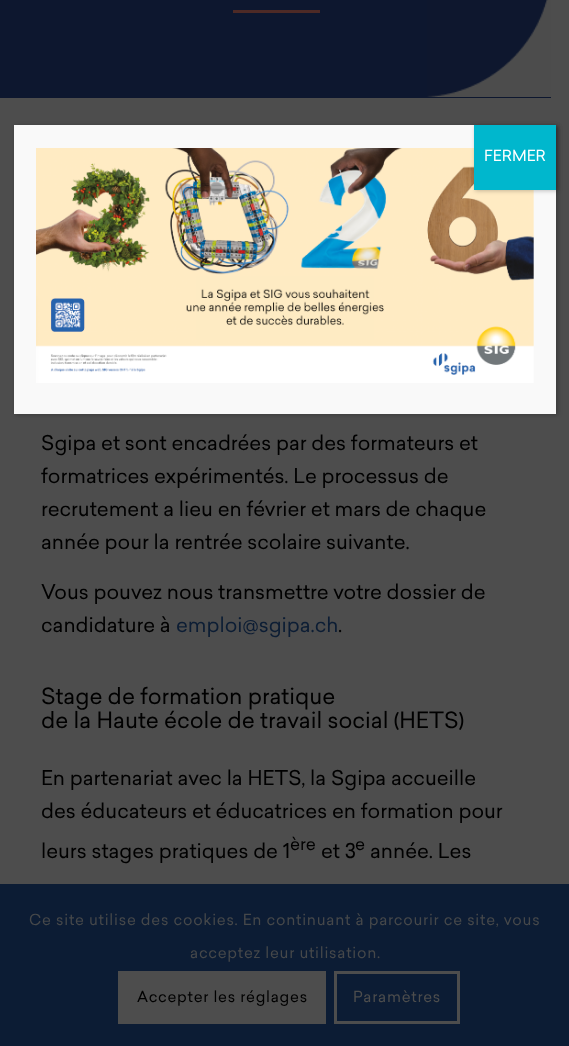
(async () => {
const canvas = document.querySelector("canvas")
canvas.width = 569
canvas.height = 1046
const c = canvas.getContext("2d")
c.miterLimit = 4
c.fontKerning = "normal"
function T(s,x,y){c.fillText(s,x,y)}
function R(x,y,w,h){c.fillRect(x,y,w,h)}
async function I(src,x,y,w,h){const img=new Image();img.src=src;await img.decode();c.drawImage(img,x,y,w,h)}
c.fillStyle="#4d4d4d"
R(0,0,569,1046)
c.fillStyle="#0202023b"
c.filter="blur(2px)"
c.beginPath()
c.rect(15,126,543,289)
c.fill()
c.filter="none"
c.fillStyle="#f9f9f9"
R(14,125,542,289)
await I("1.png",36,148,498,235)
c.fillStyle="#0202023b"
c.filter="blur(2px)"
c.beginPath()
c.rect(475,126,83,65)
c.fill()
c.filter="none"
c.fillStyle="#00b7cd"
R(474,125,82,65)
c.font="15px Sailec"
c.fillStyle="#fff"
T("FERMER",484,161)
c.fillStyle="#0d172f"
R(0,0,551,98)
await I("2.png",427,0,124,97)
c.fillStyle="#4d2a26"
R(233,10,87,3)
c.font="20px Sailec"
c.fillStyle="#000"
T("Sgipa et sont encadrées par des formateurs et",41,450)
T("formatrices expérimentés. Le processus de",41,483)
T("recrutement a lieu en février et mars de chaque",41,516)
T("année pour la rentrée scolaire suivante.",41,549)
T("Vous pouvez nous transmettre votre dossier de",41,599)
T("candidature à",41,632)
c.fillStyle="#0c1d34"
T("emploi@sgipa.ch",176,632)
c.fillStyle="#000"
T(".",338,632)
c.font="22px Sailec"
T("Stage de formation pratique",41,704)
T("de la Haute école de travail social (HETS)",41,728)
c.font="20px Sailec"
T("En partenariat avec la HETS, la Sgipa accueille",41,785)
T("des éducateurs et éducatrices en formation pour",41,818)
T("leurs stages pratiques de 1",41,858)
c.font="17px Sailec"
T("ère",290,850)
c.font="20px Sailec"
T("et 3",321,858)
c.font="17px Sailec"
T("e",355,850)
c.font="20px Sailec"
T("année. Les",370,858)
c.fillStyle="#0c1c34"
R(0,884,569,162)
c.letterSpacing="0.75px"
c.font="15px Sailec"
c.fillStyle="#46484a"
T("Ce site utilise des cookies. En continuant à parcourir ce site, vous",29,925)
T("acceptez leur utilisation.",190,958)
c.fillStyle="#4d4d4d"
R(118,971,208,53)
c.fillStyle="#000"
T("Accepter les réglages",137,1002)
c.strokeStyle="#4d4d4d"
c.lineWidth=3
c.strokeRect(335.5,972.5,123,50)
c.fillStyle="#4d4d4d"
T("Paramètres",353,1002)
})()
